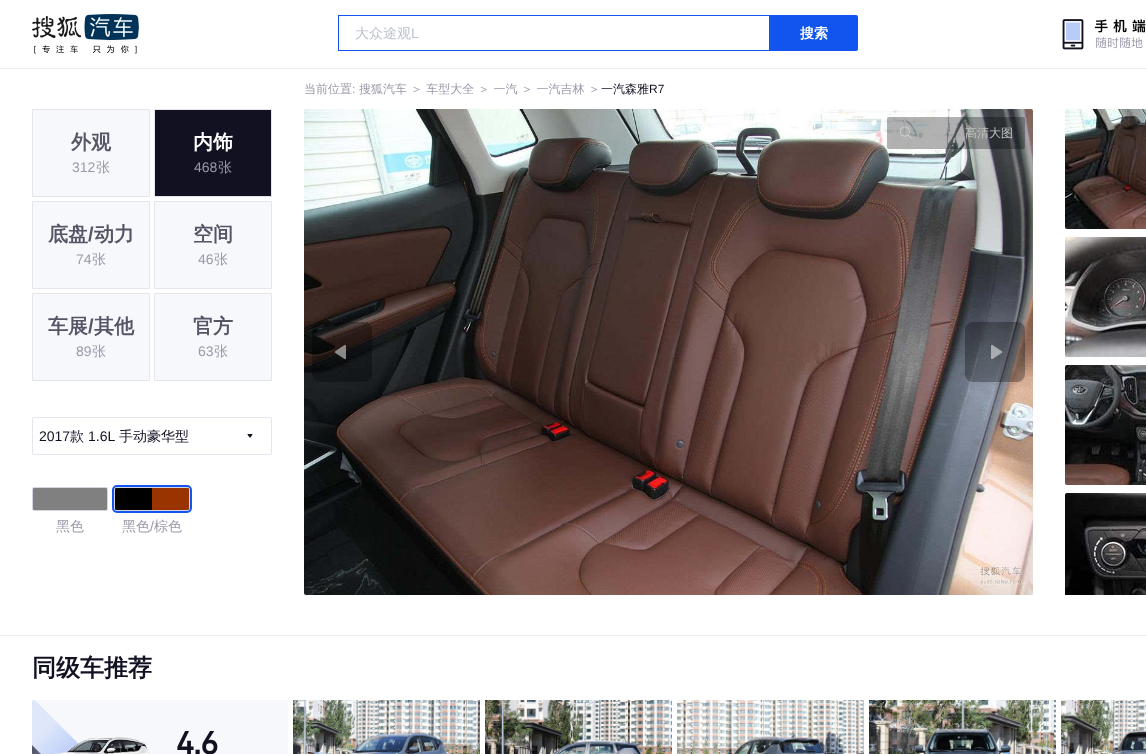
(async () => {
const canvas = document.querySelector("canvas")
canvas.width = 1146
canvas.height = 754
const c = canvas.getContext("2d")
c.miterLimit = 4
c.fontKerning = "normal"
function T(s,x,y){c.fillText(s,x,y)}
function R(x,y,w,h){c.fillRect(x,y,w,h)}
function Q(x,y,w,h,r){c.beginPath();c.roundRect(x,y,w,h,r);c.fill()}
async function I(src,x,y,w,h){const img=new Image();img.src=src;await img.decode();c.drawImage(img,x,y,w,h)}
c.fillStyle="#fff"
R(0,0,1146,754)
c.fillStyle="#eeeef0"
R(0,68,1146,1)
await I("1.png",32,14,107,40)
c.strokeStyle="#15e"
c.strokeRect(338.5,15.5,431,35)
c.font="500 14px WenQuanYi Zen Hei"
c.fillStyle="#bbc2cc"
T("大众途观",355,38)
c.font="14px Liberation Sans"
T("L",411,38)
c.fillStyle="#15e"
c.beginPath()
c.roundRect(770,15,88,36,[0,2,2,0])
c.fill()
c.font="bold 14px WenQuanYi Zen Hei"
c.fillStyle="#fff"
T("搜索",800,38)
await I("2.png",1062,19,84,31)
c.font="500 12px WenQuanYi Zen Hei"
c.fillStyle="#99a"
T("当前位置",304,93)
c.font="12px Liberation Sans"
T(":",352,93)
c.font="500 12px WenQuanYi Zen Hei"
T("搜狐汽车 ＞ 车型大全 ＞ 一汽 ＞ 一汽吉林 ＞",359,93)
c.fillStyle="#112"
T("一汽森雅",601,93)
c.font="12px Liberation Sans"
T("R7",649,93)
c.fillStyle="#f7f8fc"
c.beginPath()
c.rect(32.5,109.5,117,87)
c.fill()
c.strokeStyle="#e5e5ee"
c.stroke()
c.font="bold 20px WenQuanYi Zen Hei"
c.fillStyle="#556"
T("外观",71,149)
c.font="14px Liberation Sans"
c.fillStyle="#99a"
T("312",72,172)
c.font="500 14px WenQuanYi Zen Hei"
T("张",96,172)
c.fillStyle="#112"
c.beginPath()
c.rect(154.5,109.5,117,87)
c.fill()
c.stroke()
c.font="bold 20px WenQuanYi Zen Hei"
c.fillStyle="#fff"
T("内饰",193,149)
c.font="14px Liberation Sans"
c.fillStyle="#99a"
T("468",194,172)
c.font="500 14px WenQuanYi Zen Hei"
T("张",218,172)
c.fillStyle="#f7f8fc"
c.beginPath()
c.rect(32.5,201.5,117,87)
c.fill()
c.stroke()
c.font="bold 20px WenQuanYi Zen Hei"
c.fillStyle="#556"
T("底盘",48,241)
c.font="bold 20px Liberation Sans"
T("/",88,241)
c.font="bold 20px WenQuanYi Zen Hei"
T("动力",94,241)
c.font="14px Liberation Sans"
c.fillStyle="#99a"
T("74",76,264)
c.font="500 14px WenQuanYi Zen Hei"
T("张",92,264)
c.fillStyle="#f7f8fc"
c.beginPath()
c.rect(154.5,201.5,117,87)
c.fill()
c.stroke()
c.font="bold 20px WenQuanYi Zen Hei"
c.fillStyle="#556"
T("空间",193,241)
c.font="14px Liberation Sans"
c.fillStyle="#99a"
T("46",198,264)
c.font="500 14px WenQuanYi Zen Hei"
T("张",214,264)
c.fillStyle="#f7f8fc"
c.beginPath()
c.rect(32.5,293.5,117,87)
c.fill()
c.stroke()
c.font="bold 20px WenQuanYi Zen Hei"
c.fillStyle="#556"
T("车展",48,333)
c.font="bold 20px Liberation Sans"
T("/",88,333)
c.font="bold 20px WenQuanYi Zen Hei"
T("其他",94,333)
c.font="14px Liberation Sans"
c.fillStyle="#99a"
T("89",76,356)
c.font="500 14px WenQuanYi Zen Hei"
T("张",92,356)
c.fillStyle="#f7f8fc"
c.beginPath()
c.rect(154.5,293.5,117,87)
c.fill()
c.stroke()
c.font="bold 20px WenQuanYi Zen Hei"
c.fillStyle="#556"
T("官方",193,333)
c.font="14px Liberation Sans"
c.fillStyle="#99a"
T("63",198,356)
c.font="500 14px WenQuanYi Zen Hei"
T("张",214,356)
c.beginPath()
c.roundRect(32.5,417.5,239,37,1.5)
c.stroke()
c.font="14px Liberation Sans"
c.fillStyle="#112"
T("2017",39,441)
c.font="500 14px WenQuanYi Zen Hei"
T("款",70,441)
c.font="14px Liberation Sans"
T("1.6L",88,441)
c.font="500 14px WenQuanYi Zen Hei"
T("手动豪华型",119,441)
await I("3.png",247,434,6,4)
c.beginPath()
c.roundRect(32.5,487.5,75,23,1.5)
c.strokeStyle="#d5d5e2"
c.stroke()
c.fillStyle="#808080"
Q(33,488,74,22,1)
c.fillStyle="#99a"
T("黑色",56,531)
c.beginPath()
c.roundRect(114.5,487.5,75,23,1.5)
c.stroke()
c.fillStyle="#000"
c.beginPath()
c.roundRect(115,488,37,22,[1,0,0,1])
c.fill()
c.fillStyle="#930"
c.beginPath()
c.roundRect(152,488,37,22,[0,1,1,0])
c.fill()
c.beginPath()
c.roundRect(113,486,78,26,4)
c.strokeStyle="#15e"
c.lineWidth=2
c.stroke()
c.fillStyle="#99a"
T("黑色",122,531)
c.font="14px Liberation Sans"
T("/",150,531)
c.font="500 14px WenQuanYi Zen Hei"
T("棕色",154,531)
await I("4.png",304,109,729,486)
c.fillStyle="#0000004d"
Q(887,117,138,32,2)
await I("5.png",899,126,13,13)
c.font="500 12px WenQuanYi Zen Hei"
c.fillStyle="#bfc1c1"
T("高清大图",965,137)
c.fillStyle="#0000004d"
Q(312,322,60,60,8)
await I("6.png",334,344,12,16)
Q(965,322,60,60,8)
await I("7.png",991,344,12,15)
await I("8.png",1065,109,81,120)
await I("9.png",1065,237,81,120)
await I("10.png",1065,365,81,120)
await I("11.png",1065,493,81,102)
c.fillStyle="#eeeef0"
R(0,635,1146,1)
c.font="bold 24px WenQuanYi Zen Hei"
c.fillStyle="#112"
T("同级车推荐",32,676)
c.fillStyle="#f7f8fc"
R(32,700,256,54)
await I("12.png",32,700,47,54)
await I("13.png",55,737,95,17)
c.font="bold 32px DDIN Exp"
c.fillStyle="#112"
T("4.6",176,754)
await I("14.png",293,700,187,54)
await I("15.png",485,700,187,54)
await I("16.png",677,700,187,54)
await I("17.png",869,700,187,54)
await I("18.png",1061,700,85,54)
})()
